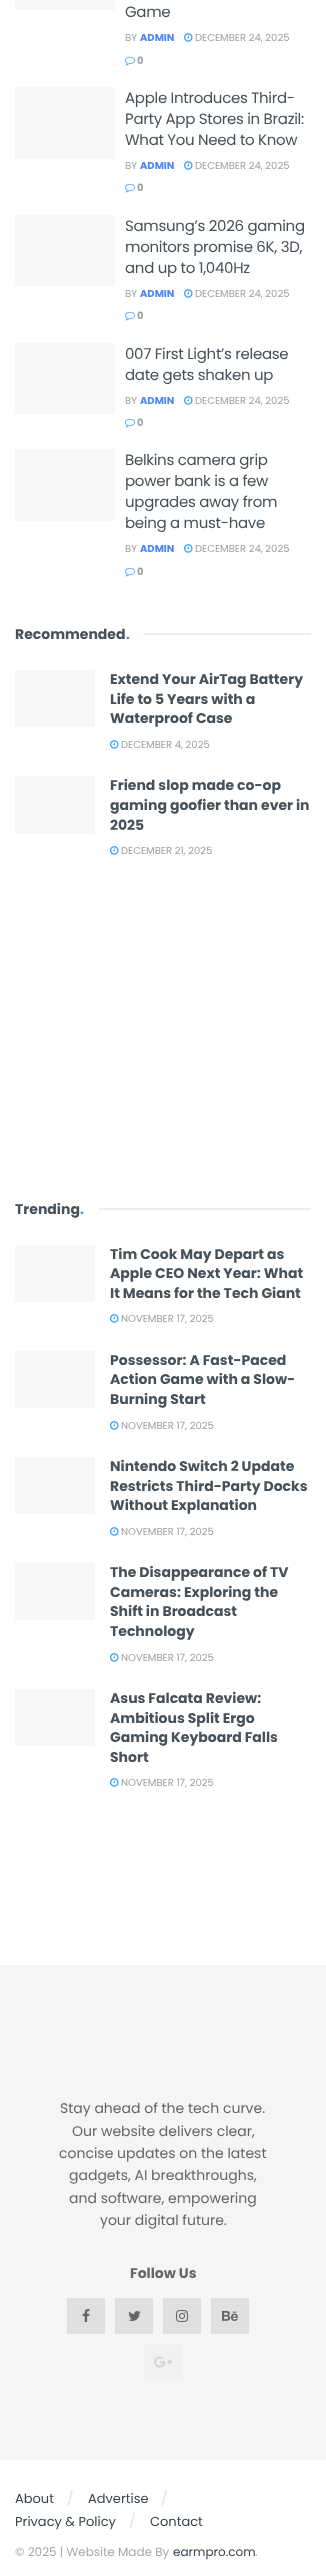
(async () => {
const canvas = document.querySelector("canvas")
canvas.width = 326
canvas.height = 2570
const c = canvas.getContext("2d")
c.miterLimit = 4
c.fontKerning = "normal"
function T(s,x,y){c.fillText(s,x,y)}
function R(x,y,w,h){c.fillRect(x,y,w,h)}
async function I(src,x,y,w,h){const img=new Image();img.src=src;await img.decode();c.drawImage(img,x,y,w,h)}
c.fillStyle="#fff"
R(0,0,326,2570)
c.fillStyle="#f7f7f7"
R(15,0,100,10)
c.letterSpacing="-0.3px"
c.font="15px Poppins"
c.fillStyle="#47515a"
T("Game",125,17)
c.letterSpacing="0px"
c.font="10px Poppins"
c.fillStyle="#a0a0a0"
T("BY",125,41)
c.font="bold 10px Poppins"
c.fillStyle="#4886ff"
T("ADMIN",140,41)
await I("1.png",184,33,9,9)
c.font="10px Poppins"
c.fillStyle="#a0a0a0"
T("DECEMBER 24, 2025",195,41)
await I("2.png",125,56,10,10)
c.font="bold 10px Poppins"
T("0",137,64)
c.fillStyle="#f7f7f7"
R(15,87,100,72)
c.letterSpacing="-0.3px"
c.font="15px Poppins"
c.fillStyle="#47515a"
T("Apple Introduces Third-",125,103)
T("Party App Stores in Brazil:",125,124)
T("What You Need to Know",125,145)
c.letterSpacing="0px"
c.font="10px Poppins"
c.fillStyle="#a0a0a0"
T("BY",125,169)
c.font="bold 10px Poppins"
c.fillStyle="#4886ff"
T("ADMIN",140,169)
await I("1.png",184,161,9,9)
c.font="10px Poppins"
c.fillStyle="#a0a0a0"
T("DECEMBER 24, 2025",195,169)
await I("2.png",125,183,10,10)
c.font="bold 10px Poppins"
T("0",137,191)
c.fillStyle="#f7f7f7"
R(15,215,100,71)
c.letterSpacing="-0.3px"
c.font="15px Poppins"
c.fillStyle="#47515a"
T("Samsung’s 2026 gaming",125,231)
T("monitors promise 6K, 3D,",125,252)
T("and up to 1,040Hz",125,273)
c.letterSpacing="0px"
c.font="10px Poppins"
c.fillStyle="#a0a0a0"
T("BY",125,297)
c.font="bold 10px Poppins"
c.fillStyle="#4886ff"
T("ADMIN",140,297)
await I("1.png",184,289,9,9)
c.font="10px Poppins"
c.fillStyle="#a0a0a0"
T("DECEMBER 24, 2025",195,297)
await I("2.png",125,311,10,10)
c.font="bold 10px Poppins"
T("0",137,319)
c.fillStyle="#f7f7f7"
R(15,343,100,71)
c.letterSpacing="-0.3px"
c.font="15px Poppins"
c.fillStyle="#47515a"
T("007 First Light’s release",125,359)
T("date gets shaken up",125,380)
c.letterSpacing="0px"
c.font="10px Poppins"
c.fillStyle="#a0a0a0"
T("BY",125,404)
c.font="bold 10px Poppins"
c.fillStyle="#4886ff"
T("ADMIN",140,404)
await I("1.png",184,396,9,9)
c.font="10px Poppins"
c.fillStyle="#a0a0a0"
T("DECEMBER 24, 2025",195,404)
await I("2.png",125,418,10,10)
c.font="bold 10px Poppins"
T("0",137,426)
c.fillStyle="#f7f7f7"
R(15,449,100,72)
c.letterSpacing="-0.3px"
c.font="15px Poppins"
c.fillStyle="#47515a"
T("Belkins camera grip",125,465)
T("power bank is a few",125,486)
T("upgrades away from",125,507)
T("being a must-have",125,528)
c.letterSpacing="0px"
c.font="10px Poppins"
c.fillStyle="#a0a0a0"
T("BY",125,552)
c.font="bold 10px Poppins"
c.fillStyle="#4886ff"
T("ADMIN",140,552)
await I("1.png",184,544,9,9)
c.font="10px Poppins"
c.fillStyle="#a0a0a0"
T("DECEMBER 24, 2025",195,552)
await I("2.png",125,567,10,10)
c.font="bold 10px Poppins"
T("0",137,575)
c.font="bold 14px Poppins"
c.fillStyle="#47515a"
T("Recommended",15,639)
c.fillStyle="#4886ff"
T(".",126,639)
c.fillStyle="#eee"
R(144,633,167,2)
c.fillStyle="#f7f7f7"
R(15,670,80,57)
c.fillStyle="#47515a"
T("Extend Your AirTag Battery",110,684)
T("Life to 5 Years with a",110,704)
T("Waterproof Case",110,723)
await I("1.png",110,740,9,9)
c.font="10px Poppins"
c.fillStyle="#a0a0a0"
T("DECEMBER 4, 2025",121,748)
c.fillStyle="#f7f7f7"
R(15,776,80,58)
c.font="bold 14px Poppins"
c.fillStyle="#47515a"
T("Friend slop made co-op",110,790)
T("gaming goofier than ever in",110,810)
T("2025",110,830)
await I("1.png",110,846,9,9)
c.font="10px Poppins"
c.fillStyle="#a0a0a0"
T("DECEMBER 21, 2025",121,854)
c.font="bold 14px Poppins"
c.fillStyle="#47515a"
T("Trending",15,1214)
c.fillStyle="#4886ff"
T(".",80,1214)
c.fillStyle="#eee"
R(99,1208,212,2)
c.fillStyle="#f7f7f7"
R(15,1245,80,57)
c.fillStyle="#47515a"
T("Tim Cook May Depart as",110,1259)
T("Apple CEO Next Year: What",110,1278)
T("It Means for the Tech Giant",110,1298)
await I("1.png",110,1314,9,9)
c.font="10px Poppins"
c.fillStyle="#a0a0a0"
T("NOVEMBER 17, 2025",121,1322)
c.fillStyle="#f7f7f7"
R(15,1351,80,57)
c.font="bold 14px Poppins"
c.fillStyle="#47515a"
T("Possessor: A Fast-Paced",110,1365)
T("Action Game with a Slow-",110,1384)
T("Burning Start",110,1404)
await I("1.png",110,1421,9,9)
c.font="10px Poppins"
c.fillStyle="#a0a0a0"
T("NOVEMBER 17, 2025",121,1429)
c.fillStyle="#f7f7f7"
R(15,1457,80,57)
c.font="bold 14px Poppins"
c.fillStyle="#47515a"
T("Nintendo Switch 2 Update",110,1471)
T("Restricts Third-Party Docks",110,1491)
T("Without Explanation",110,1510)
await I("1.png",110,1527,9,9)
c.font="10px Poppins"
c.fillStyle="#a0a0a0"
T("NOVEMBER 17, 2025",121,1535)
c.fillStyle="#f7f7f7"
R(15,1563,80,57)
c.font="bold 14px Poppins"
c.fillStyle="#47515a"
T("The Disappearance of TV",110,1577)
T("Cameras: Exploring the",110,1597)
T("Shift in Broadcast",110,1616)
T("Technology",110,1636)
await I("1.png",110,1653,9,9)
c.font="10px Poppins"
c.fillStyle="#a0a0a0"
T("NOVEMBER 17, 2025",121,1661)
c.fillStyle="#f7f7f7"
R(15,1689,80,57)
c.font="bold 14px Poppins"
c.fillStyle="#47515a"
T("Asus Falcata Review:",110,1703)
T("Ambitious Split Ergo",110,1723)
T("Gaming Keyboard Falls",110,1742)
T("Short",110,1762)
await I("1.png",110,1778,9,9)
c.font="10px Poppins"
c.fillStyle="#a0a0a0"
T("NOVEMBER 17, 2025",121,1786)
c.fillStyle="#f5f5f5"
R(0,1965,326,495)
c.font="14px Poppins"
c.fillStyle="#666"
T("Stay ahead of the tech curve.",60,2113)
T("Our website delivers clear,",72,2136)
T("concise updates on the latest",59,2158)
T("gadgets, AI breakthroughs,",69,2180)
T("and software, empowering",69,2203)
T("your digital future.",100,2225)
c.font="bold 14px Poppins"
T("Follow Us",130,2278)
c.fillStyle="#e0e0e0"
R(67,2298,38,36)
await I("3.png",82,2309,8,13)
R(115,2298,38,36)
await I("4.png",128,2311,13,10)
R(163,2298,38,36)
await I("5.png",176,2310,12,12)
R(211,2298,38,36)
await I("6.png",222,2311,16,10)
c.fillStyle="#f1f1f1"
R(144,2344,38,36)
await I("7.png",154,2356,18,12)
c.font="13px Poppins"
c.fillStyle="#39434d"
T("About",15,2503)
c.font="14px Poppins"
c.fillStyle="#e0e0e0"
T("/",67,2503)
c.font="13px Poppins"
c.fillStyle="#39434d"
T("Advertise",88,2503)
c.font="14px Poppins"
c.fillStyle="#e0e0e0"
T("/",161,2503)
c.font="13px Poppins"
c.fillStyle="#39434d"
T("Privacy & Policy",15,2526)
c.font="14px Poppins"
c.fillStyle="#e0e0e0"
T("/",129,2526)
c.font="13px Poppins"
c.fillStyle="#39434d"
T("Contact",150,2526)
c.font="12px Poppins"
c.fillStyle="#a8a8aa"
T("© 2025 | Website Made By",15,2556)
c.fillStyle="#39434d"
T("earmpro.com",173,2556)
c.fillStyle="#a8a8aa"
T(".",255,2556)
})()
